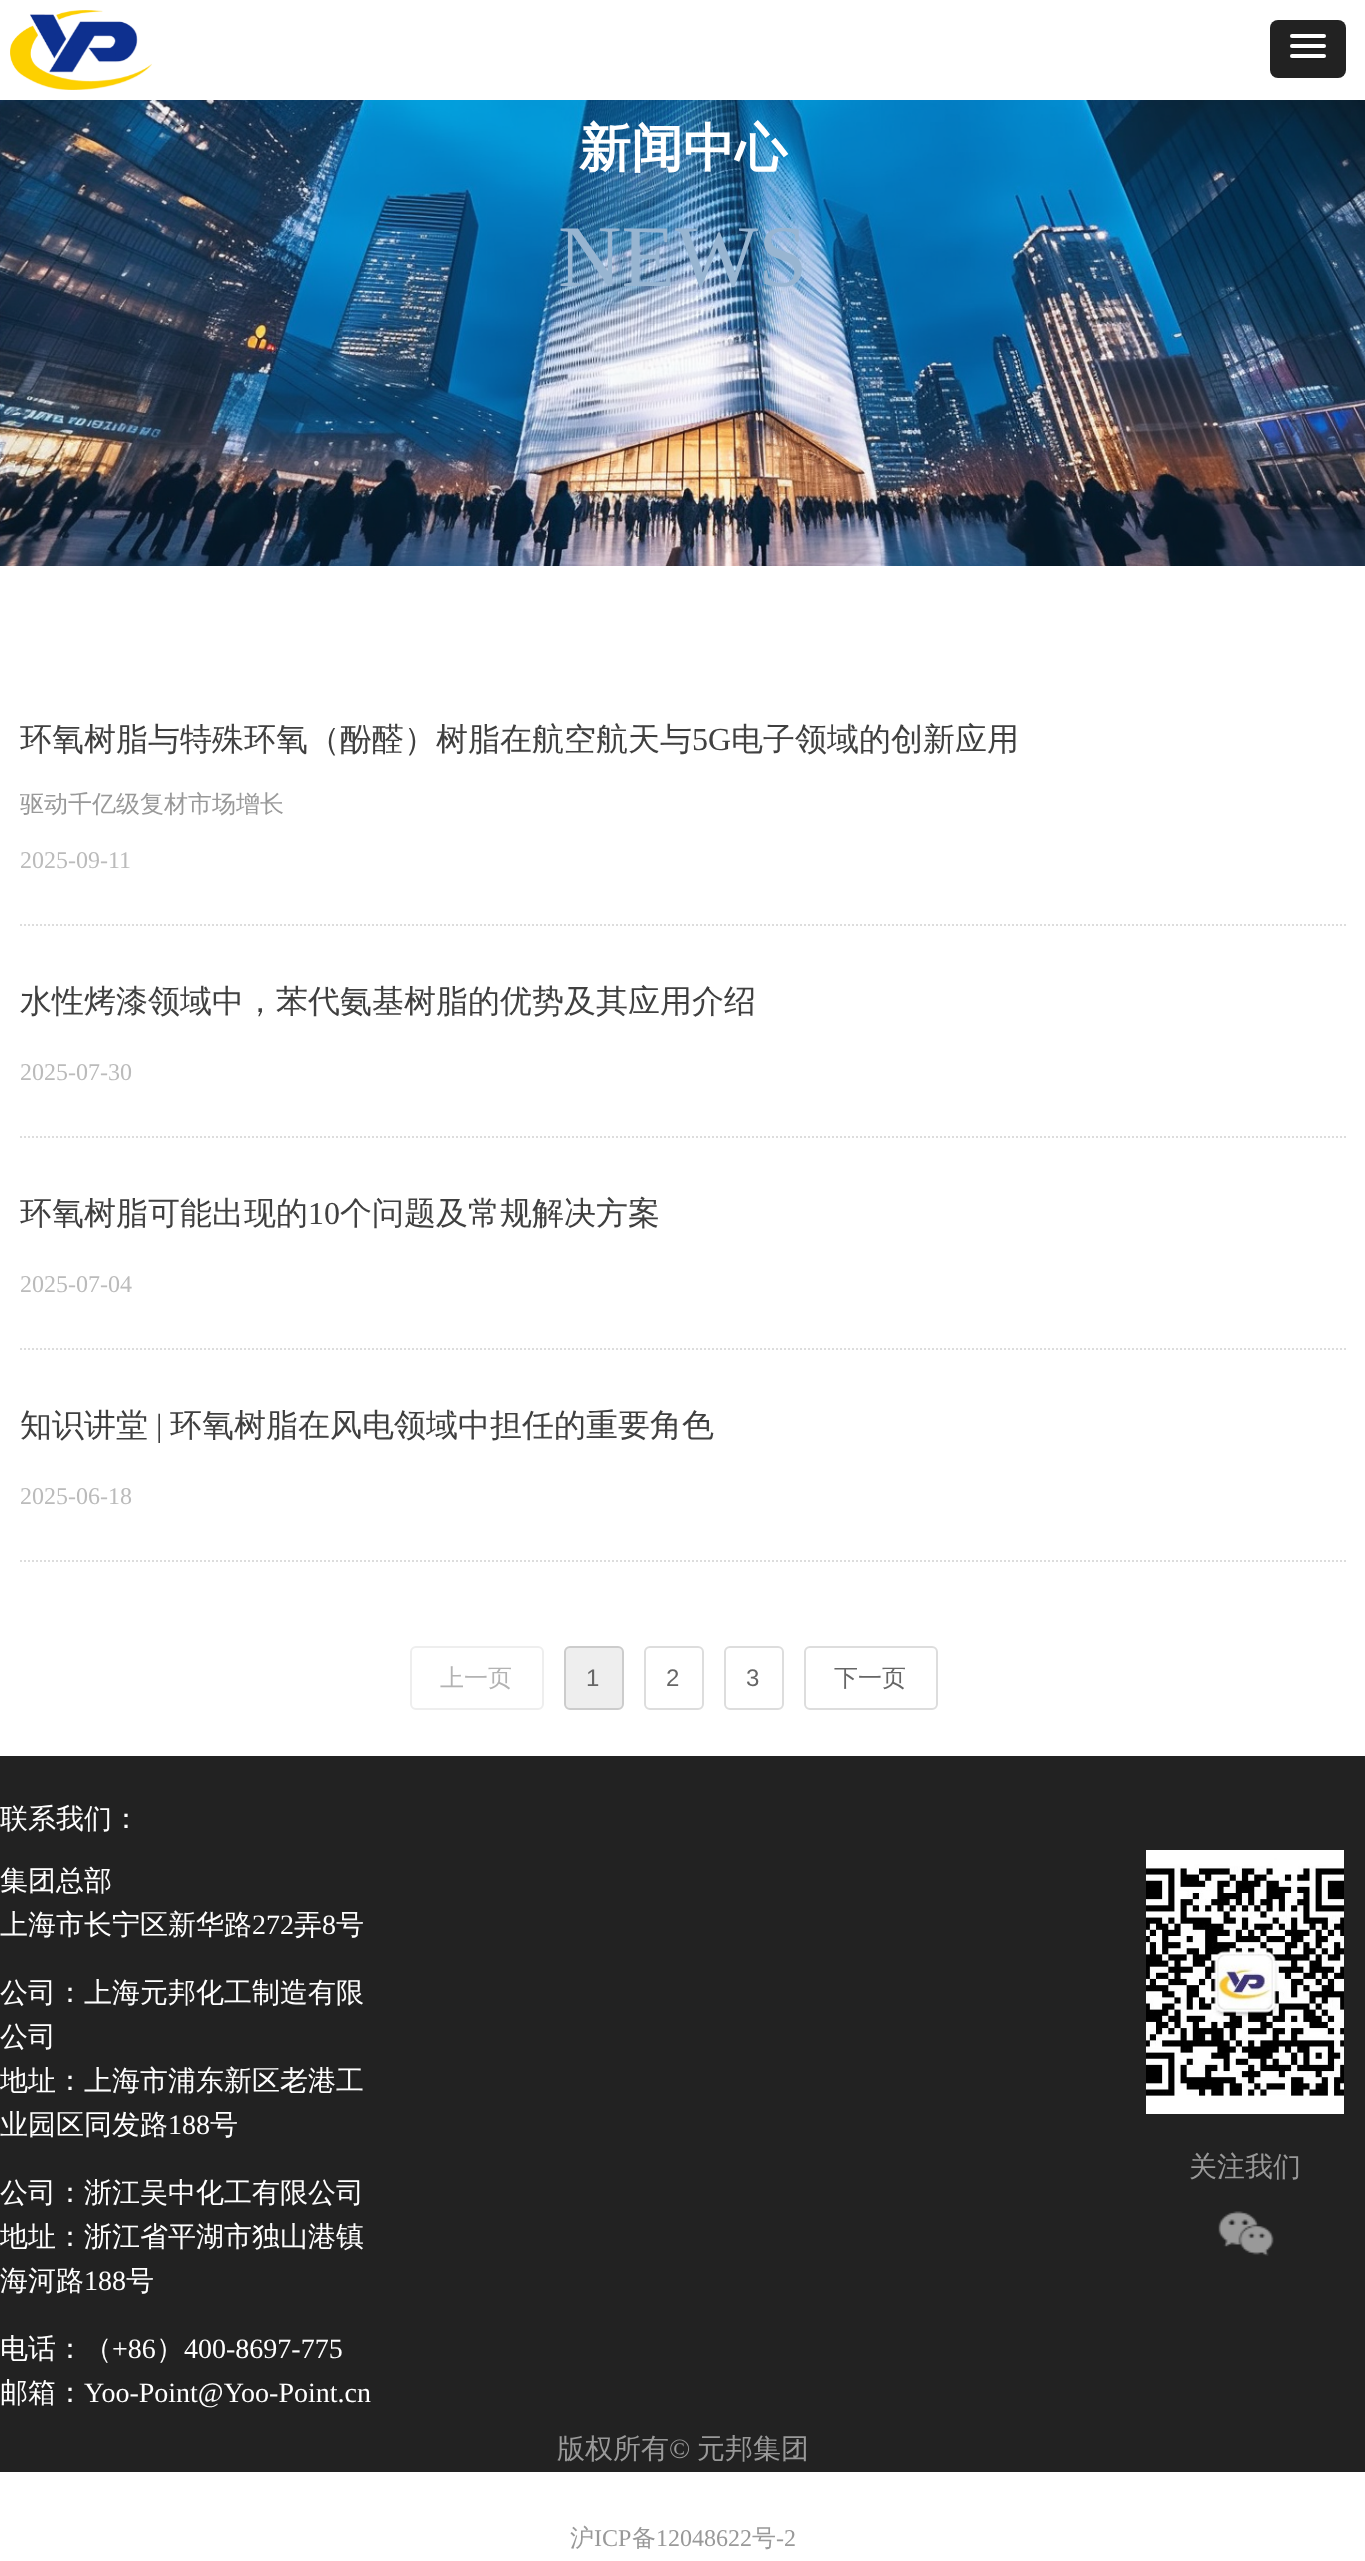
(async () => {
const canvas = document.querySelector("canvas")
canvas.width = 1365
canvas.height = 2561
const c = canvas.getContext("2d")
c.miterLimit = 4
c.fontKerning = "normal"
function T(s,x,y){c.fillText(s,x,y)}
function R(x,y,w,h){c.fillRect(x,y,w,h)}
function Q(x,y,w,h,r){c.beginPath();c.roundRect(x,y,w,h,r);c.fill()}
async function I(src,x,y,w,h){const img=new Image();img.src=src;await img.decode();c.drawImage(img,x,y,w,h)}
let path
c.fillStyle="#fff"
R(0,0,1365,2561)
await I("1.png",10,10,142,80)
c.fillStyle="#222"
Q(1270,20,76,58,8)
c.fillStyle="#1a1a1a"
path = new Path2D("M1290.5 37c-2.5 4 6.5 3 7 3h21c.5 0 9.5 1 7-3c0 .5-1 1-1.5 1h-32c-.5 0-1.5-.5-1.5-1z")
c.fill(path)
c.fillStyle="#fff"
Q(1290,34,36,4,2)
c.fillStyle="#1a1a1a"
path = new Path2D("M1290.5 47c-2.5 4 6.5 3 7 3h21c.5 0 9.5 1 7-3c0 .5-1 1-1.5 1h-32c-.5 0-1.5-.5-1.5-1z")
c.fill(path)
c.fillStyle="#fff"
Q(1290,44,36,4,2)
c.fillStyle="#1a1a1a"
path = new Path2D("M1290.5 57c-2.5 4 6.5 3 7 3h21c.5 0 9.5 1 7-3c0 .5-1 1-1.5 1h-32c-.5 0-1.5-.5-1.5-1z")
c.fill(path)
c.fillStyle="#fff"
Q(1290,54,36,4,2)
await I("2.png",0,100,1365,466)
c.font="bold 52px WenQuanYi Zen Hei"
T("新闻中心",579,166)
c.font="88px Liberation Serif"
c.fillStyle="#98b5d1"
T("NEWS",558,286)
path = new Path2D("M20 925h1326")
c.strokeStyle="#ddd"
c.lineWidth=2
c.setLineDash([2,2])
c.stroke(path)
c.font="500 32px WenQuanYi Zen Hei"
c.fillStyle="#404040"
T("环氧树脂与特殊环氧（酚醛）树脂在航空航天与",20,750)
c.font="32px Liberation Serif"
T("5G",692,750)
c.font="500 32px WenQuanYi Zen Hei"
T("电子领域的创新应用",731,750)
c.font="500 24px WenQuanYi Zen Hei"
c.fillStyle="#999"
T("驱动千亿级复材市场增长",20,812)
c.font="24px Liberation Serif"
c.fillStyle="#bbb"
T("2025-09-11",20,868)
path = new Path2D("M20 1137h1326")
c.stroke(path)
c.font="500 32px WenQuanYi Zen Hei"
c.fillStyle="#404040"
T("水性烤漆领域中，苯代氨基树脂的优势及其应用介绍",20,1012)
c.font="24px Liberation Serif"
c.fillStyle="#bbb"
T("2025-07-30",20,1080)
path = new Path2D("M20 1349h1326")
c.stroke(path)
c.font="500 32px WenQuanYi Zen Hei"
c.fillStyle="#404040"
T("环氧树脂可能出现的",20,1224)
c.font="32px Liberation Serif"
T("10",308,1224)
c.font="500 32px WenQuanYi Zen Hei"
T("个问题及常规解决方案",340,1224)
c.font="24px Liberation Serif"
c.fillStyle="#bbb"
T("2025-07-04",20,1292)
path = new Path2D("M20 1561h1326")
c.stroke(path)
c.font="500 32px WenQuanYi Zen Hei"
c.fillStyle="#404040"
T("知识讲堂",20,1436)
c.font="32px Liberation Serif"
T("|",156,1436)
c.font="500 32px WenQuanYi Zen Hei"
T("环氧树脂在风电领域中担任的重要角色",170,1436)
c.font="24px Liberation Serif"
c.fillStyle="#bbb"
T("2025-06-18",20,1504)
c.beginPath()
c.roundRect(411,1647,132,62,5)
c.strokeStyle="#eee"
c.setLineDash([])
c.stroke()
c.font="500 24px WenQuanYi Zen Hei"
c.fillStyle="#b3b3b3"
T("上一页",440,1686)
c.fillStyle="#eee"
c.beginPath()
c.roundRect(565,1647,58,62,5)
c.fill()
c.strokeStyle="#ccc"
c.stroke()
c.font="24px Liberation Sans"
c.fillStyle="#666"
T("1",586,1686)
c.beginPath()
c.roundRect(645,1647,58,62,5)
c.strokeStyle="#ddd"
c.stroke()
T("2",666,1686)
c.beginPath()
c.roundRect(725,1647,58,62,5)
c.stroke()
T("3",746,1686)
c.beginPath()
c.roundRect(805,1647,132,62,5)
c.stroke()
c.font="500 24px WenQuanYi Zen Hei"
T("下一页",834,1686)
c.fillStyle="#222"
R(0,1756,1365,716)
c.font="500 28px WenQuanYi Zen Hei"
c.fillStyle="#fff"
T("联系我们：",0,1828)
T("集团总部",0,1890)
T("上海市长宁区新华路",0,1934)
c.font="28px Liberation Serif"
T("272",252,1934)
c.font="500 28px WenQuanYi Zen Hei"
T("弄",294,1934)
c.font="28px Liberation Serif"
T("8",322,1934)
c.font="500 28px WenQuanYi Zen Hei"
T("号",336,1934)
T("公司：上海元邦化工制造有限",0,2002)
T("公司",0,2046)
T("地址：上海市浦东新区老港工",0,2090)
T("业园区同发路",0,2134)
c.font="28px Liberation Serif"
T("188",168,2134)
c.font="500 28px WenQuanYi Zen Hei"
T("号",210,2134)
T("公司：浙江吴中化工有限公司",0,2202)
T("地址：浙江省平湖市独山港镇",0,2246)
T("海河路",0,2290)
c.font="28px Liberation Serif"
T("188",84,2290)
c.font="500 28px WenQuanYi Zen Hei"
T("号",126,2290)
T("电话：（",0,2358)
c.font="28px Liberation Serif"
T("+86",112,2358)
c.font="500 28px WenQuanYi Zen Hei"
T("）",156,2358)
c.font="28px Liberation Serif"
T("400-8697-775",184,2358)
c.font="500 28px WenQuanYi Zen Hei"
T("邮箱：",0,2402)
c.font="28px Liberation Serif"
T("Yoo-Point@Yoo-Point.cn",84,2402)
await I("3.png",1146,1850,198,264)
c.font="500 28px WenQuanYi Zen Hei"
c.fillStyle="#999"
T("关注我们",1189,2176)
await I("4.png",1218,2211,56,45)
T("版权所有",557,2458)
c.font="28px Liberation Serif"
T("©",669,2458)
c.font="500 28px WenQuanYi Zen Hei"
T("元邦集团",697,2458)
c.font="500 24px WenQuanYi Zen Hei"
T("沪",570,2546)
c.font="24px Liberation Serif"
T("ICP",594,2546)
c.font="500 24px WenQuanYi Zen Hei"
T("备",632,2546)
c.font="24px Liberation Serif"
T("12048622",656,2546)
c.font="500 24px WenQuanYi Zen Hei"
T("号",752,2546)
c.font="24px Liberation Serif"
T("-2",776,2546)
})()
